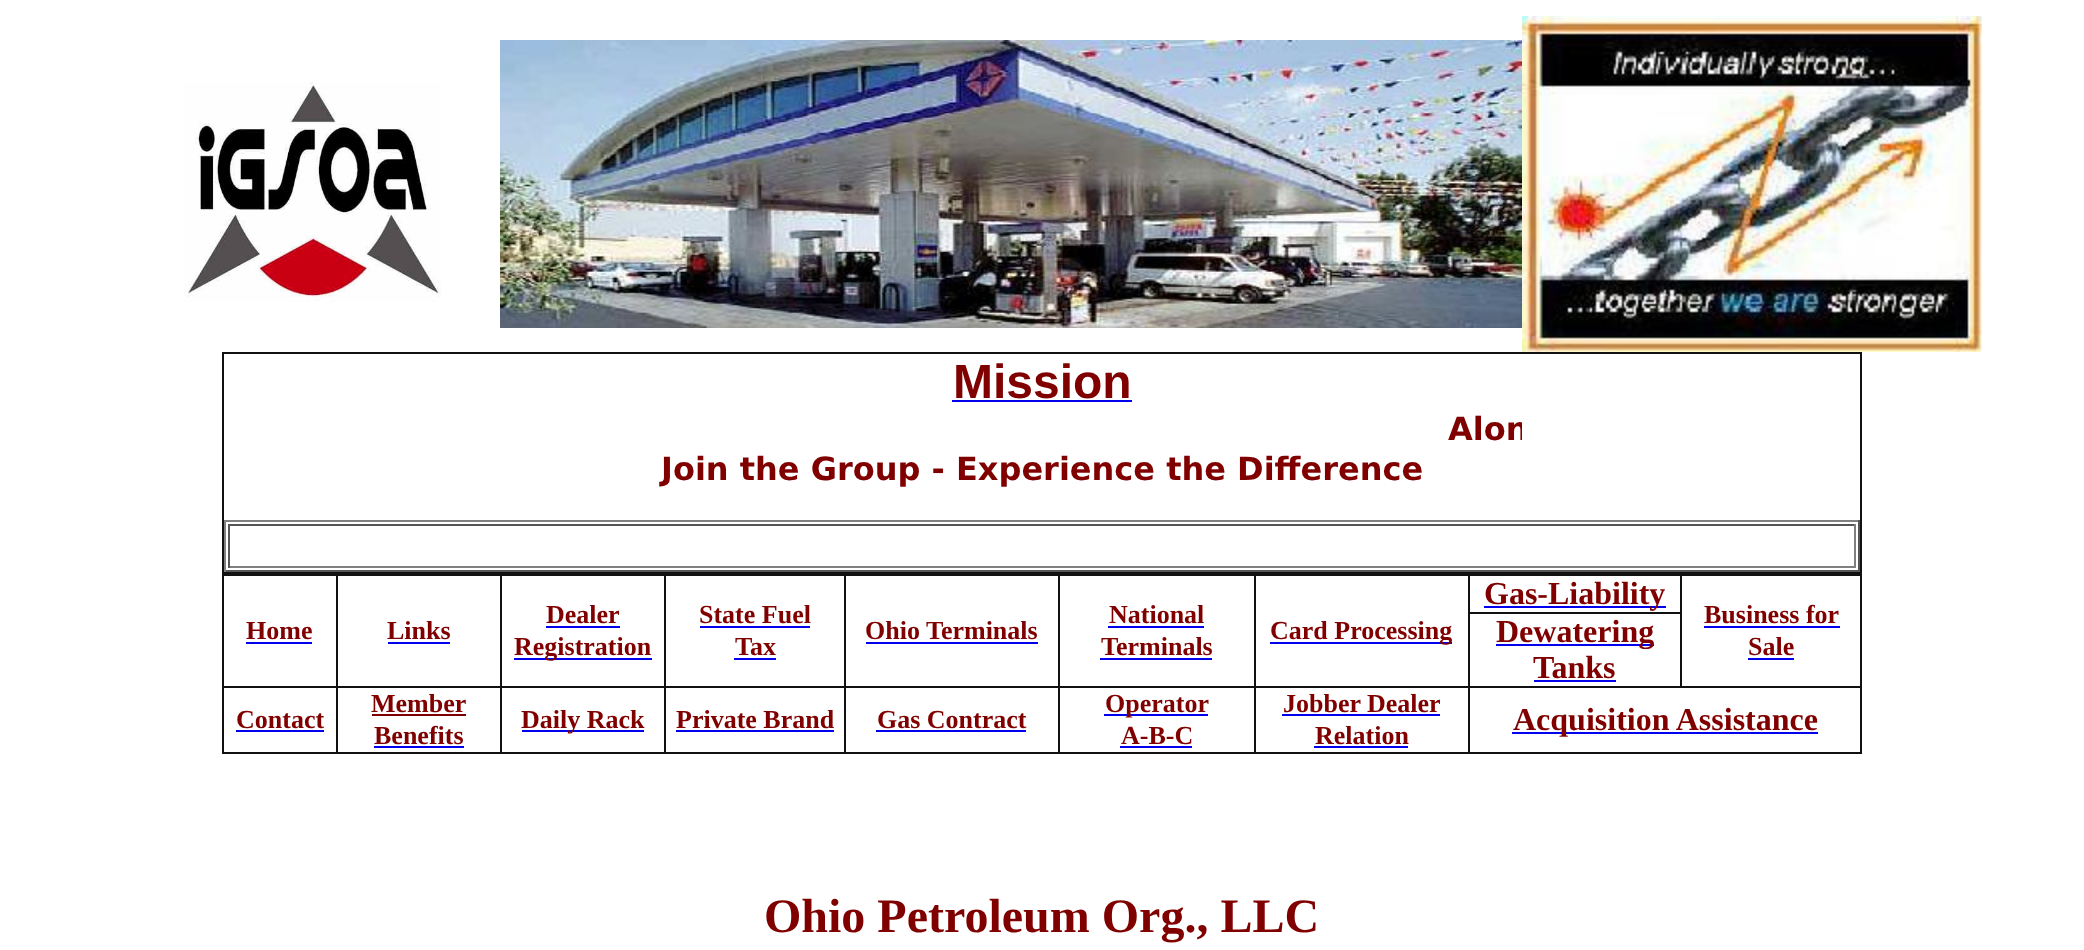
(async () => {
const canvas = document.querySelector("canvas")
canvas.width = 2084
canvas.height = 950
const c = canvas.getContext("2d")
c.miterLimit = 4
c.fontKerning = "normal"
function T(s,x,y){c.fillText(s,x,y)}
function R(x,y,w,h){c.fillRect(x,y,w,h)}
async function I(src,x,y,w,h){const img=new Image();img.src=src;await img.decode();c.drawImage(img,x,y,w,h)}
c.fillStyle="#fff"
R(0,0,2084,950)
await I("1.png",184,82,257,220)
await I("2.png",500,40,1022,288)
await I("3.png",1522,16,460,336)
c.fillStyle="#111"
R(222,352,1640,2)
R(1860,352,2,222)
R(222,572,1640,4)
R(222,352,2,222)
c.font="bold 48px Liberation Sans"
c.fillStyle="#800000"
T("Mission",953,398)
c.fillStyle="#00e"
R(952,400,180,2)
c.save()
c.beginPath()
c.rect(560,410,962,40)
c.clip()
c.font="bold 32px DejaVu Sans"
c.fillStyle="#800000"
T("Alon",1448,440)
c.restore()
c.font="bold 32px DejaVu Sans"
c.fillStyle="#800000"
T("Join the Group - Experience the Difference",661,480)
c.fillStyle="#808080"
R(224,520,1636,2)
c.fillStyle="#555"
R(1858,520,2,52)
R(224,570,1636,2)
c.fillStyle="#808080"
R(224,520,2,52)
c.fillStyle="#555"
R(228,524,1628,2)
c.fillStyle="#808080"
R(1854,524,2,44)
R(228,566,1628,2)
c.fillStyle="#555"
R(228,524,2,44)
c.fillStyle="#111"
R(1860,574,2,180)
R(222,752,1640,2)
R(222,574,2,180)
c.fillStyle="#00e"
R(1484,606,182,2)
c.font="bold 32px Liberation Serif"
c.fillStyle="#800000"
T("Gas-Liability",1484,604)
c.font="bold 26px Liberation Serif"
T("Home",246,639)
c.fillStyle="#00e"
R(246,642,66,2)
c.fillStyle="#111"
R(1468,686,394,2)
R(1468,686,2,68)
R(1254,686,216,2)
R(1254,686,2,68)
R(1058,686,198,2)
R(1058,686,2,68)
R(844,686,216,2)
R(844,686,2,68)
R(664,686,182,2)
R(664,686,2,68)
R(500,686,166,2)
R(500,686,2,68)
R(336,686,166,2)
R(336,686,2,68)
R(222,686,116,2)
R(336,574,2,114)
c.fillStyle="#800000"
T("Links",387,639)
c.fillStyle="#00e"
R(388,642,62,2)
c.fillStyle="#111"
R(500,574,2,114)
c.fillStyle="#800000"
T("Dealer",546,623)
c.fillStyle="#00e"
R(546,626,74,2)
R(514,658,138,2)
c.fillStyle="#800000"
T("Registration",514,655)
c.fillStyle="#111"
R(664,574,2,114)
c.fillStyle="#800000"
T("State Fuel",699,623)
c.fillStyle="#00e"
R(700,626,110,2)
c.fillStyle="#800000"
T("Tax",735,655)
c.fillStyle="#00e"
R(734,658,42,2)
c.fillStyle="#111"
R(844,574,2,114)
c.fillStyle="#800000"
T("Ohio Terminals",865,639)
c.fillStyle="#00e"
R(866,642,172,2)
c.fillStyle="#111"
R(1058,574,2,114)
c.fillStyle="#800000"
T("National",1109,623)
c.fillStyle="#00e"
R(1108,626,96,2)
c.fillStyle="#800000"
T("Terminals",1101,655)
c.fillStyle="#00e"
R(1100,658,112,2)
c.fillStyle="#111"
R(1254,574,2,114)
c.fillStyle="#00e"
R(1270,642,182,2)
c.fillStyle="#800000"
T("Card Processing",1270,639)
c.fillStyle="#111"
R(1468,612,214,2)
R(1680,574,2,114)
c.fillStyle="#800000"
T("Business for",1704,623)
c.fillStyle="#00e"
R(1704,626,136,2)
c.fillStyle="#800000"
T("Sale",1748,655)
c.fillStyle="#00e"
R(1748,658,46,2)
c.fillStyle="#111"
R(1468,574,2,114)
c.fillStyle="#00e"
R(1496,644,158,2)
c.font="bold 32px Liberation Serif"
c.fillStyle="#800000"
T("Dewatering",1496,642)
T("Tanks",1533,678)
c.fillStyle="#00e"
R(1534,680,82,2)
c.font="bold 26px Liberation Serif"
c.fillStyle="#800000"
T("Contact",236,728)
c.fillStyle="#00e"
R(236,730,88,2)
c.fillStyle="#800000"
T("Member",371,712)
R(372,714,94,2)
T("Benefits",374,744)
c.fillStyle="#00e"
R(374,746,90,2)
R(522,730,122,2)
c.fillStyle="#800000"
T("Daily Rack",521,728)
T("Private Brand",676,728)
c.fillStyle="#00e"
R(676,730,158,2)
c.fillStyle="#800000"
T("Gas Contract",877,728)
c.fillStyle="#00e"
R(876,730,150,2)
R(1104,714,104,2)
c.fillStyle="#800000"
T("Operator",1105,712)
T("A-B-C",1121,744)
c.fillStyle="#00e"
R(1120,746,72,2)
c.fillStyle="#800000"
T("Jobber Dealer",1283,712)
c.fillStyle="#00e"
R(1282,714,158,2)
c.fillStyle="#800000"
T("Relation",1315,744)
c.fillStyle="#00e"
R(1314,746,94,2)
R(1512,732,306,2)
c.font="bold 32px Liberation Serif"
c.fillStyle="#800000"
T("Acquisition Assistance",1513,730)
c.font="bold 48px Liberation Serif"
T("Ohio Petroleum Org., LLC",764,932)
})()
